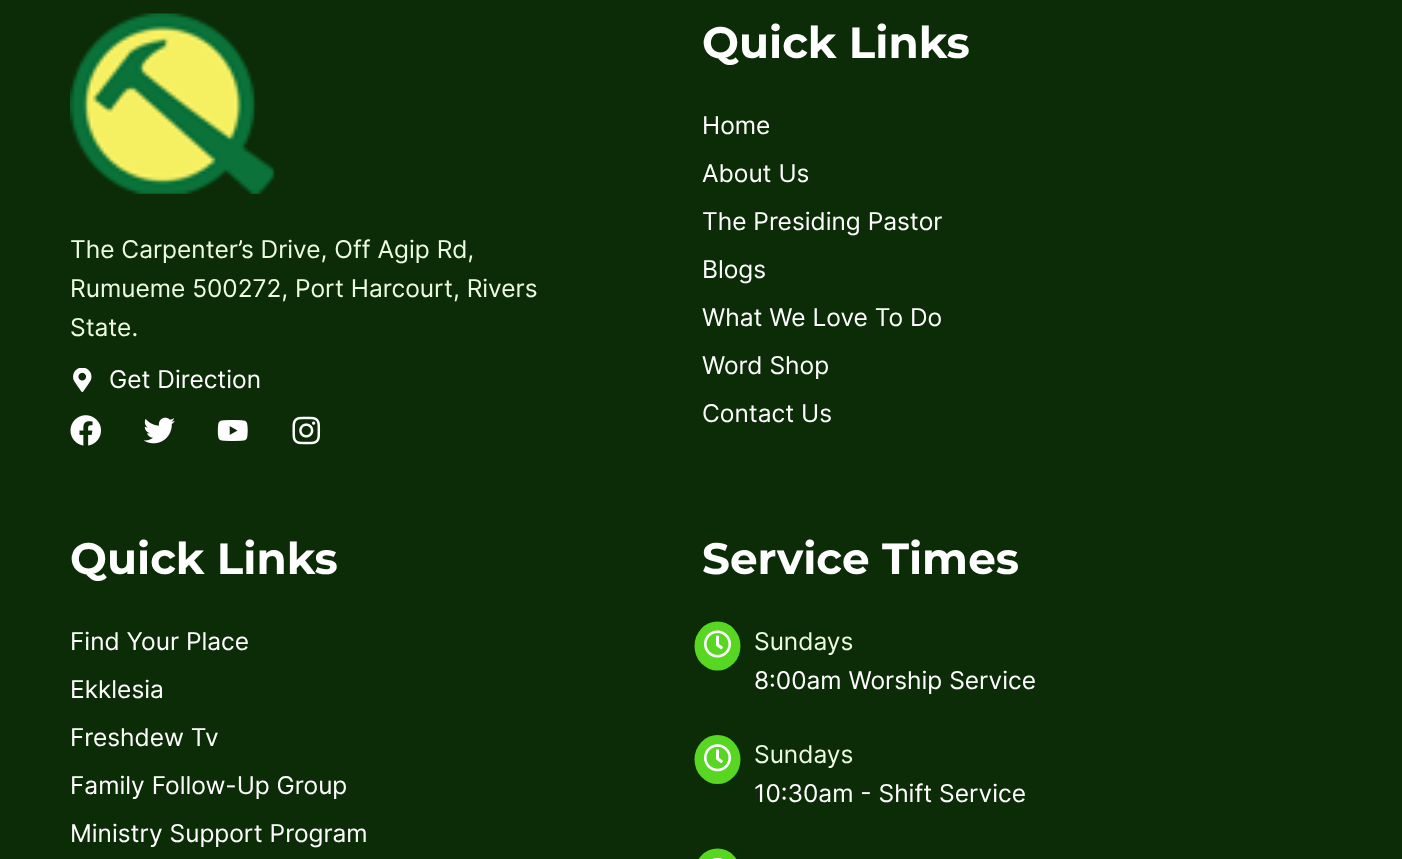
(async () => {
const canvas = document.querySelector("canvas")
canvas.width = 1402
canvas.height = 859
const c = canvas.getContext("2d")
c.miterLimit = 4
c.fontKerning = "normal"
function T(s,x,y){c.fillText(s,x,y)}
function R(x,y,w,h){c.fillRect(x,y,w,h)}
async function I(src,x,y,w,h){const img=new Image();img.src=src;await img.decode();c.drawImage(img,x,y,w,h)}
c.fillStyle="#0c2c07"
R(0,0,1402,859)
await I("1.png",70,13,205,181)
c.font="24.5px Inter"
c.fillStyle="#edfbe2"
T("The Carpenter’s Drive, Off Agip Rd,",70,258)
T("Rumueme 500272, Port Harcourt, Rivers",70,297)
T("State.",70,336)
await I("2.png",73,368,19,24)
c.fillStyle="#fff"
T("Get Direction",109,388)
await I("3.png",70,415,31,31)
await I("4.png",144,417,31,27)
await I("5.png",217,420,31,21)
await I("6.png",292,416,29,29)
c.font="100 43.75px Montserrat"
T("Quick Links",702,58)
c.font="24.5px Inter"
T("Home",702,134)
T("About Us",702,182)
T("The Presiding Pastor",702,230)
T("Blogs",702,278)
T("What We Love To Do",702,326)
T("Word Shop",702,374)
T("Contact Us",702,422)
c.font="100 43.75px Montserrat"
T("Quick Links",70,574)
c.font="24.5px Inter"
T("Find Your Place",70,650)
T("Ekklesia",70,698)
T("Freshdew Tv",70,746)
T("Family Follow-Up Group",70,794)
T("Ministry Support Program",70,842)
c.font="100 43.75px Montserrat"
T("Service Times",702,574)
c.fillStyle="#57d622"
c.beginPath()
c.ellipse(717.5,646,23,24.5,0,0,7)
c.fill()
await I("7.png",704,630,27,28)
c.font="24.5px Inter"
c.fillStyle="#edfbe2"
T("Sundays",754,650)
c.fillStyle="#fff"
T("8:00am Worship Service",754,689)
c.fillStyle="#57d622"
c.beginPath()
c.ellipse(717.5,759.5,23,24.5,0,0,7)
c.fill()
await I("8.png",704,744,28,28)
c.fillStyle="#edfbe2"
T("Sundays",754,763)
c.fillStyle="#fff"
T("10:30am - Shift Service",754,802)
c.fillStyle="#57d622"
c.beginPath()
c.ellipse(717.5,873,23,24.5,0,0,7)
c.fill()
await I("9.png",712,858,11,1)
})()
